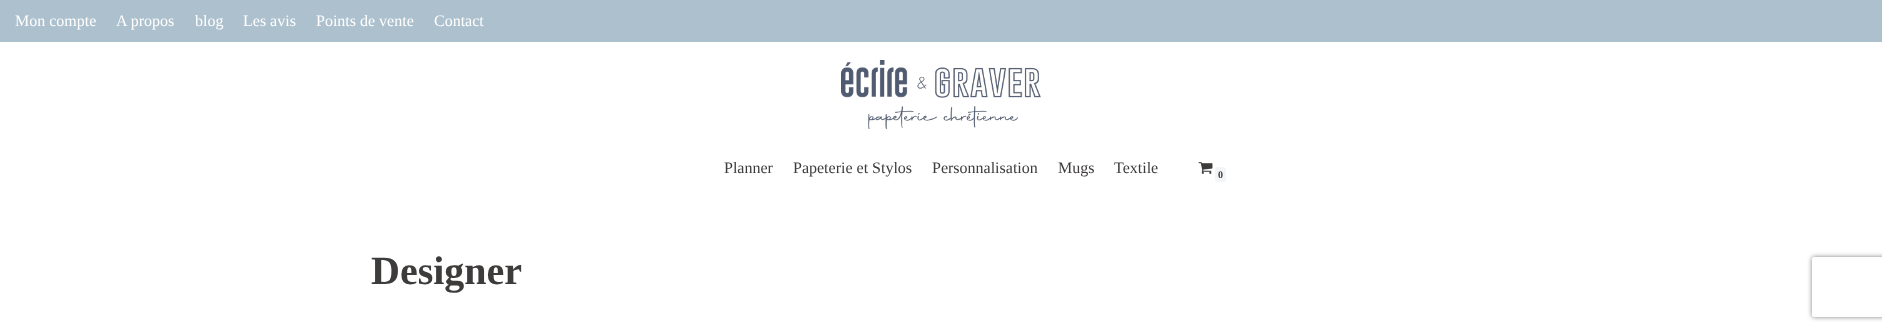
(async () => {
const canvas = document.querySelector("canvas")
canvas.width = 1882
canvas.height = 331
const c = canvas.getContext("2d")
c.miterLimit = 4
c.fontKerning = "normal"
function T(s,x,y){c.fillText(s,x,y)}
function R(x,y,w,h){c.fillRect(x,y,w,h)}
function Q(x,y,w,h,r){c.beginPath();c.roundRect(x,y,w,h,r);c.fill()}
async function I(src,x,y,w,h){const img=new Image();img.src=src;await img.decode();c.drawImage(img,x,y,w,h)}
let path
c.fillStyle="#fff"
R(0,0,1882,331)
c.fillStyle="#adc0ce"
R(0,0,1882,42)
c.font="16px Liberation Serif"
c.fillStyle="#fff"
T("Mon compte",15,26)
T("A propos",116,26)
T("blog",195,26)
T("Les avis",243,26)
T("Points de vente",316,26)
T("Contact",434,26)
await I("1.png",841,60,200,69)
c.fillStyle="#3e3b3b"
T("Planner",724,173)
T("Papeterie et Stylos",793,173)
T("Personnalisation",932,173)
T("Mugs",1058,173)
T("Textile",1114,173)
await I("2.png",1198,162,15,12)
c.fillStyle="#f4f5f7"
Q(1215,167,11,15,3)
c.font="bold 10px Liberation Serif"
c.fillStyle="#3e3b3b"
T("0",1218,178)
c.font="bold 40px Liberation Serif"
T("Designer",371,284)
c.save()
path = new Path2D("M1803 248h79v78h-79zm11 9h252c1 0 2 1 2 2v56c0 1-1 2-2 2h-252c-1 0-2-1-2-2v-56c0-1 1-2 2-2z")
c.clip(path,"evenodd")
c.fillStyle="#808080"
c.filter="blur(2.5px)"
c.beginPath()
c.roundRect(1812,257,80,60,2)
c.fill()
c.filter="none"
c.restore()
})()
